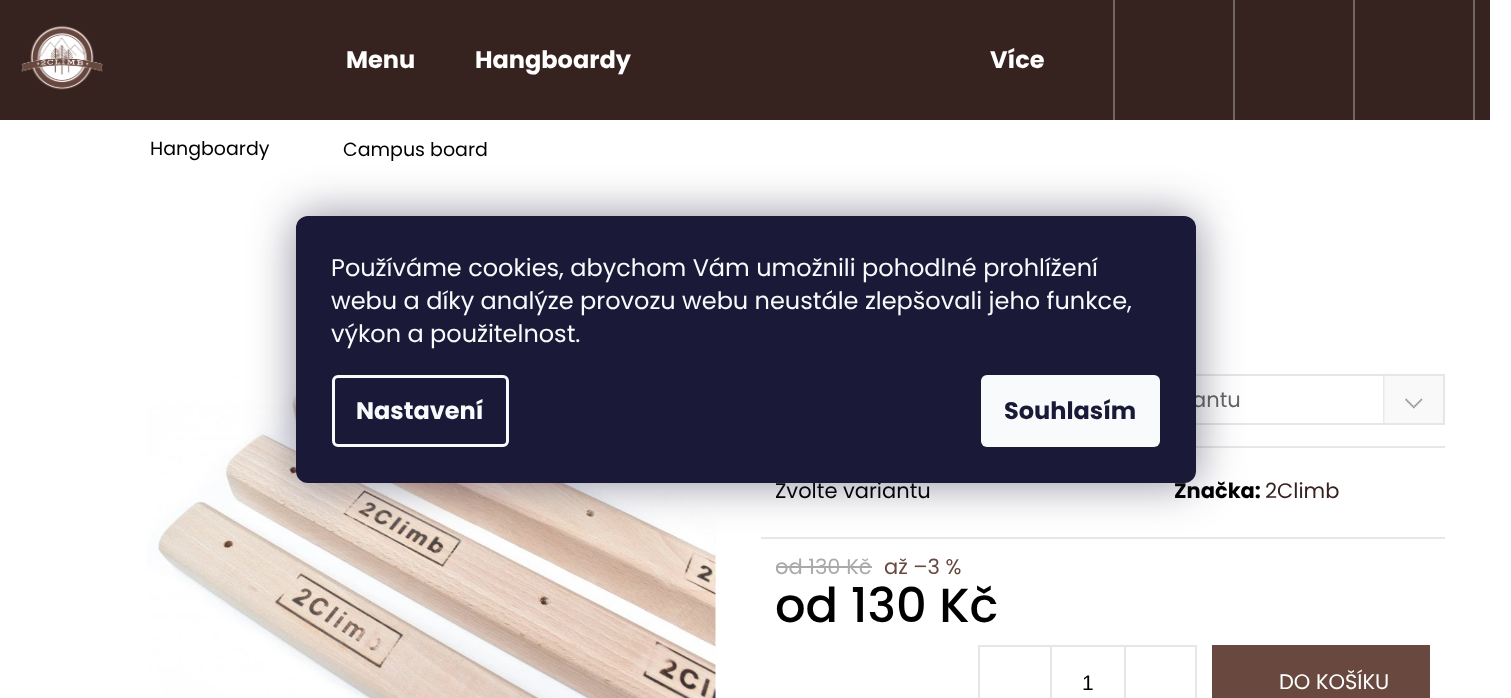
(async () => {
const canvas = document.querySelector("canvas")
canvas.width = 1511
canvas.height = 698
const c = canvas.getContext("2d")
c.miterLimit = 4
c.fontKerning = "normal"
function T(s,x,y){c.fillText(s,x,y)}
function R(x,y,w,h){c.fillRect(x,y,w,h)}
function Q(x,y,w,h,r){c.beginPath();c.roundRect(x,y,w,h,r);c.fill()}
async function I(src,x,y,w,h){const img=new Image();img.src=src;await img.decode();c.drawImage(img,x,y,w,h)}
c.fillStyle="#fff"
R(0,0,1511,698)
c.fillStyle="#36231f"
R(0,0,1490,120)
await I("1.png",21,25,82,65)
c.font="bold 24px Poppins"
c.fillStyle="#fff"
T("Menu",346,68)
T("Hangboardy",475,68)
T("Více",990,68)
c.fillStyle="#726562"
R(1473,0,2,120)
R(1113,0,2,120)
R(1233,0,2,120)
R(1353,0,2,120)
c.font="19px Poppins"
c.fillStyle="#000"
T("Hangboardy",150,155)
T("Campus board",343,156)
await I("2.png",147,374,569,324)
await I("3.png",1383,373,60,50)
c.strokeStyle="#e6e6e6"
c.lineWidth=2
c.strokeRect(1069,375,375,49)
c.font="21px Poppins"
c.fillStyle="#666"
T("antu",1192,407)
c.fillStyle="#e7e7e7"
R(1196,446,249,2)
R(761,537,684,2)
c.fillStyle="#000"
T("Zvolte variantu",775,498)
c.font="bold 21px Poppins"
T("Značka:",1174,498)
c.font="21px Poppins"
c.fillStyle="#36231f"
T("2Climb",1265,498)
c.fillStyle="#aaa"
T("od 130 Kč",775,574)
R(776,566,96,2)
c.fillStyle="#69483f"
T("až –3 %",884,574)
c.font="500 48px Poppins"
c.fillStyle="#000"
T("od 130 Kč",775,622)
c.strokeRect(979,646,217,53)
c.fillStyle="#e6e6e6"
R(1050,647,2,51)
c.font="21px Liberation Sans"
c.fillStyle="#000"
T("1",1082,690)
c.fillStyle="#e6e6e6"
R(1124,647,2,51)
c.fillStyle="#69483f"
R(1212,645,218,53)
c.font="21px Poppins"
c.fillStyle="#fff"
T("DO KOŠÍKU",1279,689)
c.fillStyle="#1b193980"
c.filter="blur(22.5px)"
c.beginPath()
c.roundRect(296,216,900,267,12)
c.fill()
c.filter="none"
c.fillStyle="#1a1937"
Q(296,216,900,267,12)
c.font="24px Poppins"
c.fillStyle="#f8fafb"
T("Používáme cookies, abychom Vám umožnili pohodlné prohlížení",331,276)
T("webu a díky analýze provozu webu neustále zlepšovali jeho funkce,",331,309)
T("výkon a použitelnost.",331,342)
c.beginPath()
c.roundRect(333.5,376.5,174,69,4.5)
c.strokeStyle="#f8fafb"
c.lineWidth=3
c.stroke()
c.font="bold 24px Poppins"
T("Nastavení",356,419)
Q(981,375,179,72,6)
c.fillStyle="#1a1937"
T("Souhlasím",1004,419)
})()
